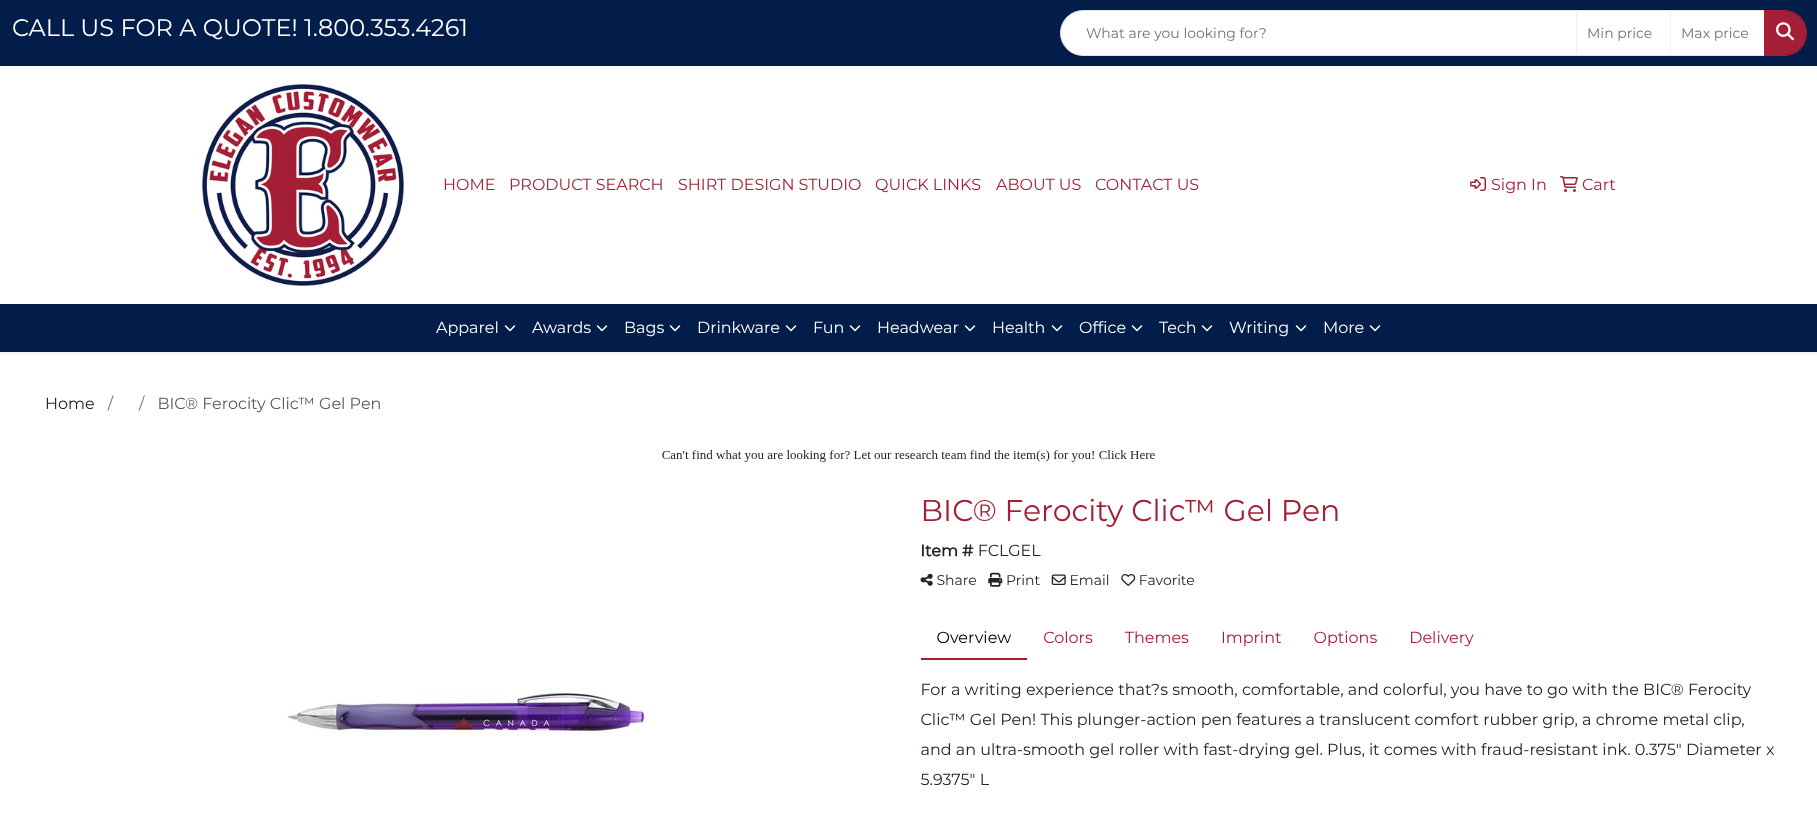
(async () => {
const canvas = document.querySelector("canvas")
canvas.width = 1817
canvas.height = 817
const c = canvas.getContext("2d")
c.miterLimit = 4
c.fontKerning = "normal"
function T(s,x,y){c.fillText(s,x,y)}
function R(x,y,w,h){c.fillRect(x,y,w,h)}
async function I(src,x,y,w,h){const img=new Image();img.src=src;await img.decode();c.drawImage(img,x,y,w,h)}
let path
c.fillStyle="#fff"
R(0,0,1817,817)
c.fillStyle="#021d49"
R(0,0,1817,352)
c.font="100 24px Montserrat"
c.fillStyle="#fff"
T("CALL US FOR A QUOTE! 1.800.353.4261",12,36)
c.beginPath()
c.roundRect(1060.5,10.5,516,45,[22.5,0,0,22.5])
c.fill()
c.strokeStyle="#e4e4e4"
c.stroke()
c.font="100 14px Montserrat"
c.fillStyle="#6c757d"
T("What are you looking for?",1086,38)
c.fillStyle="#fff"
R(1577,11,93,44)
c.fillStyle="#e4e4e4"
R(1576,10,189,1)
R(1576,55,189,1)
c.fillStyle="#efefef"
R(1576,10,1,46)
c.fillStyle="#6c757d"
T("Min price",1587,38)
c.fillStyle="#fff"
R(1671,11,93,44)
c.fillStyle="#efefef"
R(1670,10,1,46)
c.fillStyle="#6c757d"
T("Max price",1681,38)
c.fillStyle="#a41f35"
c.beginPath()
c.roundRect(1764,11,42,44,[0,22,22,0])
c.fill()
path = new Path2D("M1764 10h20c13 0 23 10 23 23c0 13-10 23-23 23h-20zm0 1h20c12 0 22 10 22 22c0 12-10 22-22 22h-20z")
c.fill(path,"evenodd")
await I("1.png",1776,22,18,19)
c.fillStyle="#fff"
R(0,66,1817,238)
await I("2.png",202,84,202,202)
c.font="100 16px Montserrat"
c.fillStyle="#a41f35"
T("HOME",443,190)
T("PRODUCT SEARCH",509,190)
T("SHIRT DESIGN STUDIO",678,190)
T("QUICK LINKS",875,190)
T("ABOUT US",996,190)
T("CONTACT US",1095,190)
await I("3.png",1470,177,16,14)
T("Sign In",1491,190)
await I("4.png",1560,176,18,16)
T("Cart",1582,190)
c.save()
c.beginPath()
c.rect(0,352,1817,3)
c.clip()
c.fillStyle="#00000012"
c.filter="blur(2px)"
c.beginPath()
c.rect(0,306,1817,48)
c.fill()
c.filter="none"
c.restore()
c.fillStyle="#fff"
T("Apparel",436,333)
await I("5.png",504,325,12,7)
T("Awards",532,333)
await I("5.png",596,325,12,7)
T("Bags",624,333)
await I("5.png",669,325,12,7)
T("Drinkware",697,333)
await I("5.png",785,325,12,7)
T("Fun",813,333)
await I("5.png",849,325,12,7)
T("Headwear",877,333)
await I("5.png",964,325,12,7)
T("Health",992,333)
await I("5.png",1051,325,12,7)
T("Office",1079,333)
await I("5.png",1131,325,12,7)
T("Tech",1159,333)
await I("5.png",1201,325,12,7)
T("Writing",1229,333)
await I("5.png",1295,325,12,7)
T("More",1323,333)
await I("5.png",1369,325,12,7)
await I("6.png",46,395,1729,390)
})()
